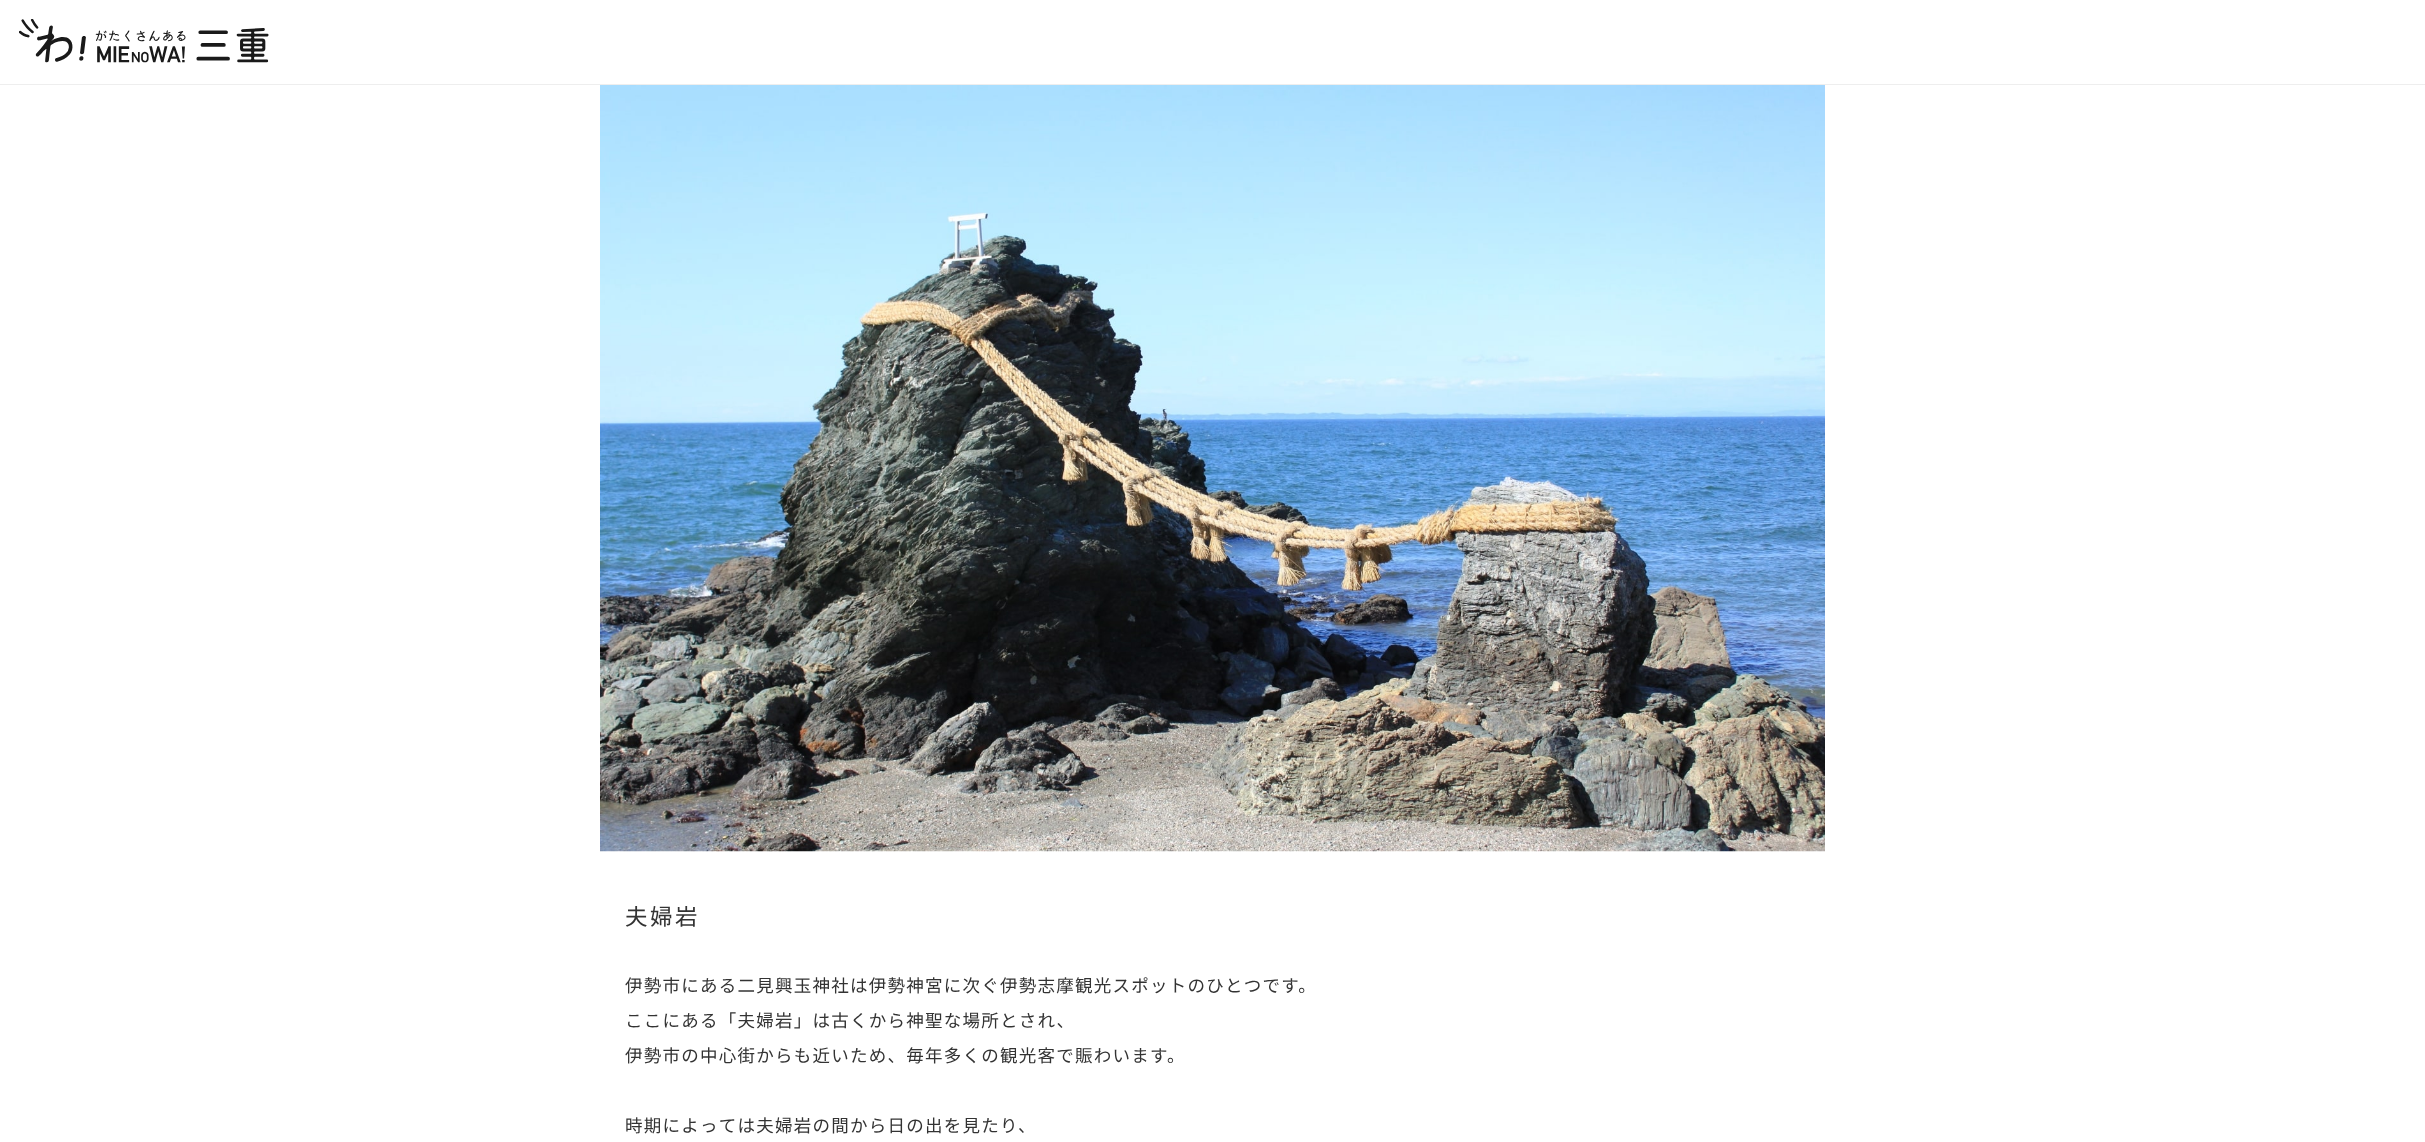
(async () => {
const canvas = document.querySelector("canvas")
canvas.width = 2425
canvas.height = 1142
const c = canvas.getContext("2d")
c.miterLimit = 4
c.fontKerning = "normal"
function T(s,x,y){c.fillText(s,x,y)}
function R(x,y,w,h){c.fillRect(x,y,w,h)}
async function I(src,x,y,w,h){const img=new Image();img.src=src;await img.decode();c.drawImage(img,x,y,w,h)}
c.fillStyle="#fff"
R(0,0,2425,1142)
c.fillStyle="#eee"
R(0,84,2425,1)
await I("1.png",19,19,250,44)
await I("2.png",600,85,1225,767)
c.letterSpacing="2.5px"
c.font="22.5px Noto Sans JP"
c.fillStyle="#333"
T("夫婦岩",625,925)
c.letterSpacing="1.25px"
c.font="17.5px Noto Sans JP"
T("伊勢市にある二見興玉神社は伊勢神宮に次ぐ伊勢志摩観光スポットのひとつです。",625,992)
T("ここにある「夫婦岩」は古くから神聖な場所とされ、",625,1027)
T("伊勢市の中心街からも近いため、毎年多くの観光客で賑わいます。",625,1062)
T("時期によっては夫婦岩の間から日の出を見たり、",625,1132)
})()
